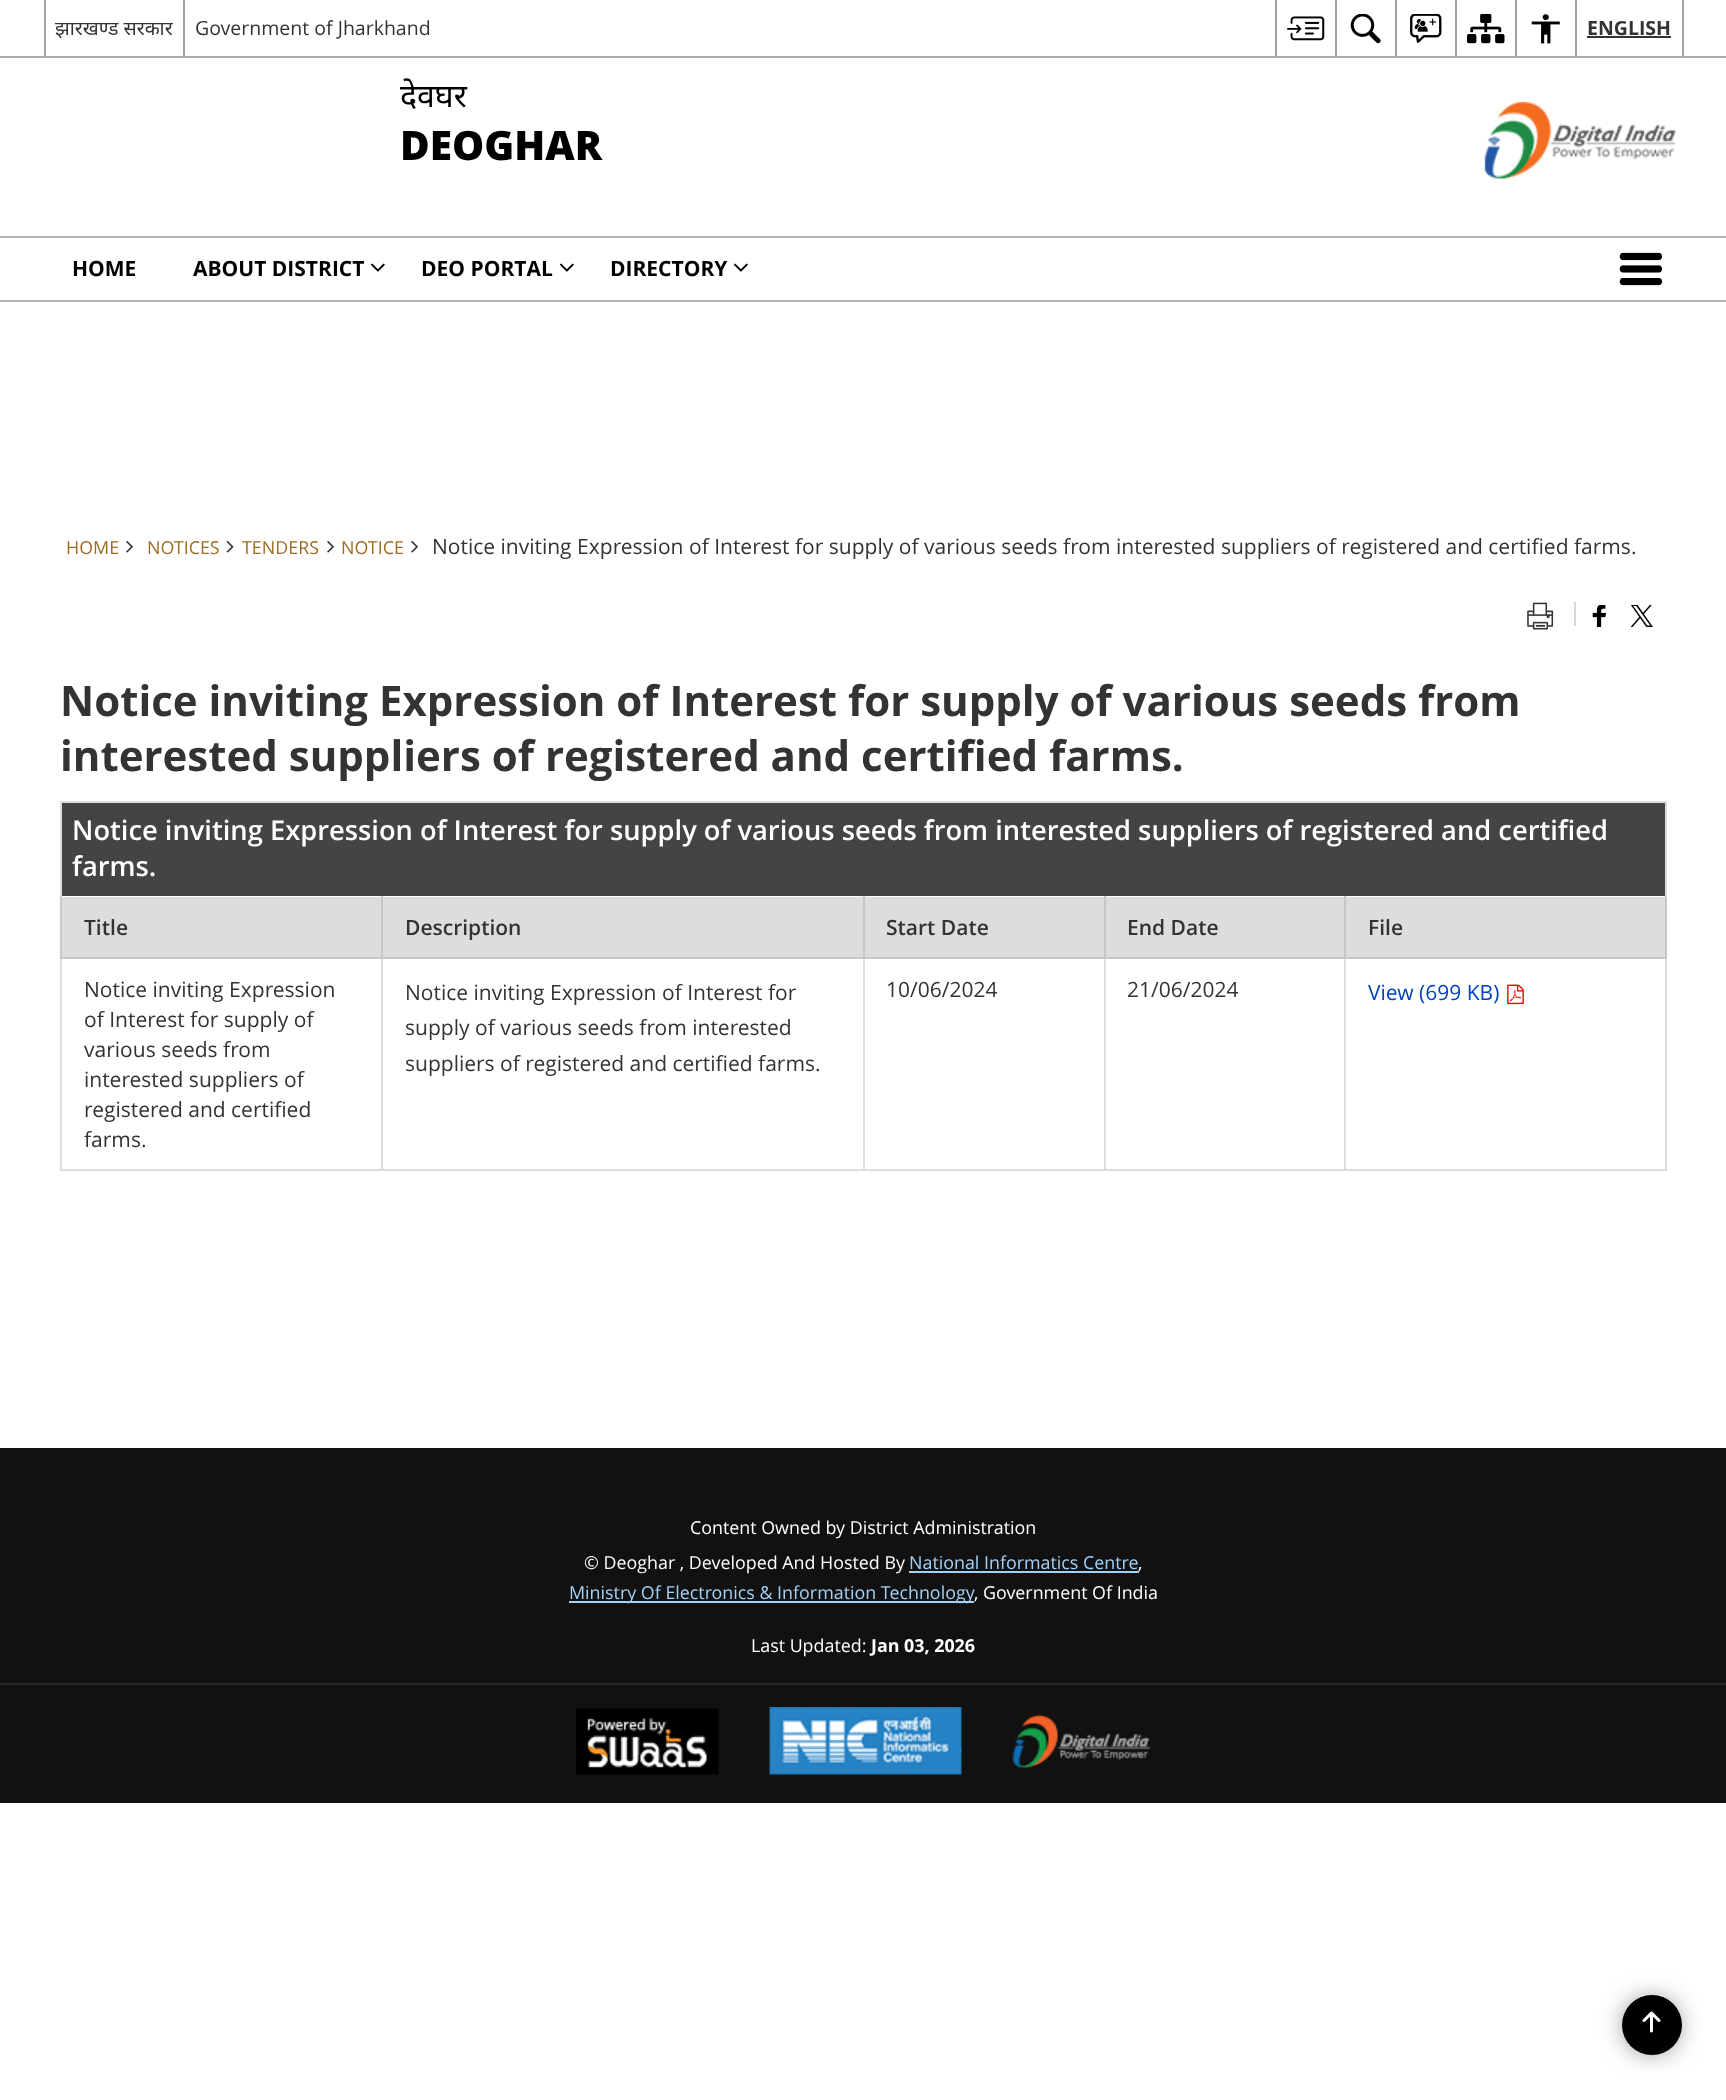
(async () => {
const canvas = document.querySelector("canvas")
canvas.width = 1726
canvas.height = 2100
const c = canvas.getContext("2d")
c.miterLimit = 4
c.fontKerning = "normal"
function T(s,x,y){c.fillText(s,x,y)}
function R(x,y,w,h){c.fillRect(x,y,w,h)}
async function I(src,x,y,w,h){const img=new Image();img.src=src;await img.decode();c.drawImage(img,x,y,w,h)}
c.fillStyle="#fff"
R(0,0,1726,2100)
c.fillStyle="#ababab"
R(0,56,1726,2)
c.fillStyle="#a3a3a3"
R(44,0,2,56)
c.font="19.5px Noto Sans"
c.fillStyle="#333"
T("झारखण्ड सरकार",55,35)
c.fillStyle="#a3a3a3"
R(183,0,2,56)
c.font="19.5px Open Sans"
c.fillStyle="#333"
T("Government of Jharkhand",195,35)
c.fillStyle="#a3a3a3"
R(1275,0,2,56)
await I("1.png",1287,16,38,25)
R(1335,0,2,56)
await I("2.png",1350,14,31,30)
R(1395,0,2,56)
await I("3.png",1410,14,32,29)
R(1455,0,2,56)
await I("4.png",1467,14,38,30)
R(1515,0,2,56)
await I("5.png",1531,14,29,30)
R(1682,0,2,56)
R(1575,0,2,56)
c.font="bold 19.5px Open Sans"
c.fillStyle="#333"
T("ENGLISH",1587,35)
R(1587,36,84,2)
c.font="32px Noto Sans"
c.fillStyle="#000"
T("देवघर",400,107)
c.font="800 40.5px Open Sans"
T("DEOGHAR",400,160)
await I("6.png",1484,101,192,78)
c.fillStyle="#b3b3b3"
R(0,236,1726,2)
R(0,300,1726,2)
c.font="bold 21px Open Sans"
c.fillStyle="#000"
T("HOME",72,276)
T("ABOUT DISTRICT",193,276)
await I("7.png",370,263,15,9)
T("DEO PORTAL",421,276)
await I("7.png",559,263,15,9)
T("DIRECTORY",610,276)
await I("7.png",733,263,15,9)
await I("8.png",1619,252,44,34)
c.font="17.85px Open Sans"
c.fillStyle="#9e6b22"
T("HOME",66,554)
await I("9.png",126,541,7,12)
T("NOTICES",147,554)
await I("10.png",226,541,8,12)
T("TENDERS",242,554)
await I("9.png",327,541,7,12)
T("NOTICE",341,554)
await I("9.png",411,541,7,12)
c.font="21px Open Sans"
c.fillStyle="#333"
T("Notice inviting Expression of Interest for supply of various seeds from interested suppliers of registered and certified farms.",432,554)
await I("11.png",1527,602,27,28)
c.fillStyle="#d8d8d8"
R(1574,602,2,24)
await I("12.png",1592,605,14,22)
await I("13.png",1631,605,22,22)
c.font="bold 42px Open Sans"
c.fillStyle="#333"
T("Notice inviting Expression of Interest for supply of various seeds from",60,716)
T("interested suppliers of registered and certified farms.",60,771)
c.fillStyle="#ddd"
R(60,801,1607,2)
R(1665,801,2,369)
R(60,1169,1607,2)
R(60,801,2,369)
c.fillStyle="#444"
R(62,803,1603,93)
c.font="600 27.3px Open Sans"
c.fillStyle="#fff"
T("Notice inviting Expression of Interest for supply of various seeds from interested suppliers of registered and certified",72,840)
T("farms.",72,876)
c.fillStyle="#ddd"
R(62,897,319,60)
c.fillStyle="#c7c7c7"
R(1665,896,2,63)
c.fillStyle="#ddd"
R(1344,957,2,213)
c.fillStyle="#c7c7c7"
R(1344,957,323,2)
R(1344,896,2,63)
c.fillStyle="#ddd"
R(1104,957,2,213)
c.fillStyle="#c7c7c7"
R(1104,957,242,2)
R(1104,896,2,63)
c.fillStyle="#ddd"
R(863,957,2,213)
c.fillStyle="#c7c7c7"
R(863,957,243,2)
R(863,896,2,63)
c.fillStyle="#ddd"
R(381,957,2,213)
c.fillStyle="#c7c7c7"
R(381,957,483,2)
R(381,896,2,63)
R(60,957,323,2)
R(60,896,2,63)
c.font="600 21px Open Sans"
c.fillStyle="#333"
T("Title",84,935)
c.fillStyle="#ddd"
R(383,897,480,60)
c.fillStyle="#333"
T("Description",405,935)
c.fillStyle="#ddd"
R(865,897,239,60)
c.fillStyle="#333"
T("Start Date",886,935)
c.fillStyle="#ddd"
R(1106,897,238,60)
c.fillStyle="#333"
T("End Date",1127,935)
c.fillStyle="#ddd"
R(1346,897,319,60)
c.fillStyle="#333"
T("File",1368,935)
c.font="21px Open Sans"
T("Notice inviting Expression",84,997)
T("of Interest for supply of",84,1027)
T("various seeds from",84,1057)
T("interested suppliers of",84,1087)
T("registered and certified",84,1117)
T("farms.",84,1147)
T("Notice inviting Expression of Interest for",405,1000)
T("supply of various seeds from interested",405,1035)
T("suppliers of registered and certified farms.",405,1071)
T("10/06/2024",886,997)
T("21/06/2024",1127,997)
c.fillStyle="#0042bf"
T("View (699 KB)",1368,1000)
await I("14.png",1507,984,17,21)
c.fillStyle="#111"
R(0,1448,1726,355)
c.font="17.85px Open Sans"
c.fillStyle="#fff"
T("Content Owned by District Administration",690,1534)
T("© Deoghar , Developed And Hosted By",584,1569)
c.fillStyle="#a3d2f9"
T("National Informatics Centre",909,1569)
R(909,1571,230,2)
c.fillStyle="#fff"
T(",",1138,1569)
c.fillStyle="#a3d2f9"
R(569,1601,405,2)
T("Ministry Of Electronics & Information Technology",569,1599)
c.fillStyle="#fff"
T(", Government Of India",974,1599)
T("Last Updated:",751,1652)
c.font="bold 17.85px Open Sans"
T("Jan 03, 2026",871,1652)
c.fillStyle="#292929"
R(0,1683,1726,2)
await I("15.png",576,1708,143,67)
await I("16.png",769,1707,193,68)
await I("17.png",1012,1714,139,55)
c.fillStyle="#3c3c3c"
c.filter="blur(14px)"
c.beginPath()
c.roundRect(1629,2003,45,45,22.5)
c.fill()
c.filter="none"
c.fillStyle="#000"
c.beginPath()
c.arc(1652,2025,30,0,7)
c.fill()
await I("18.png",1642,2011,19,22)
})()
